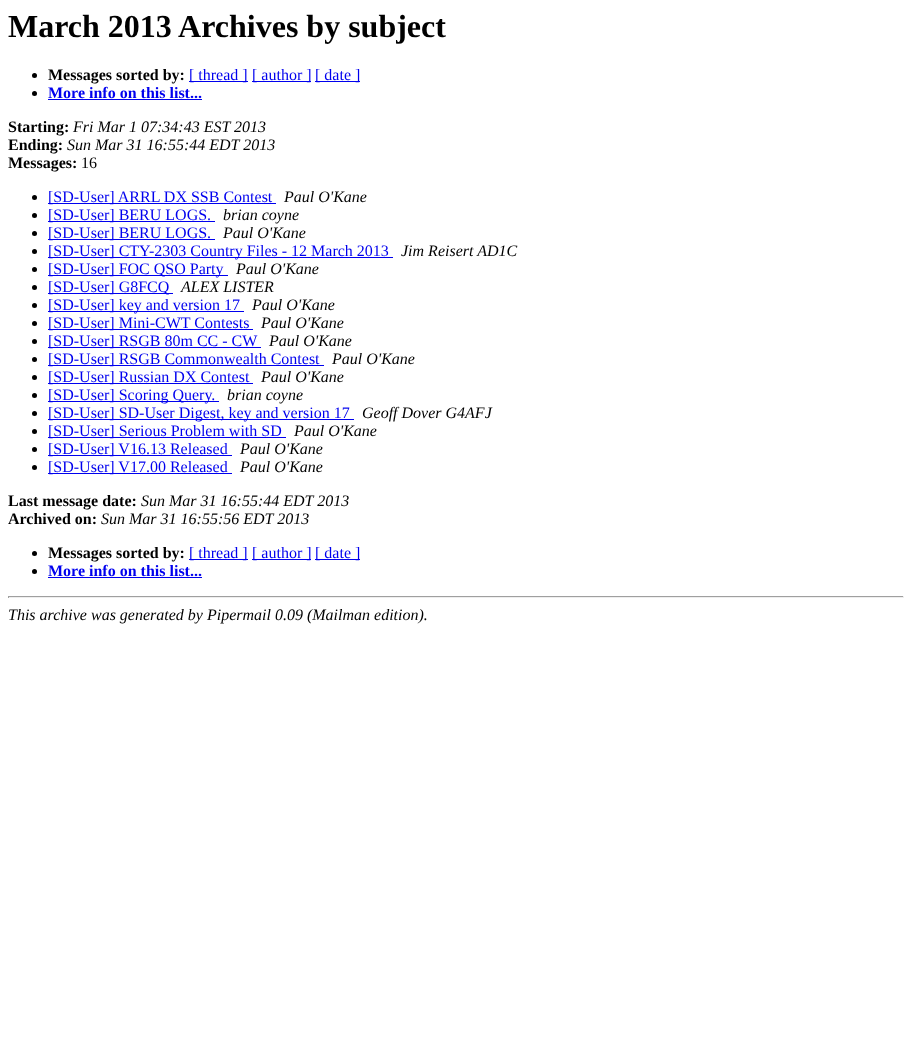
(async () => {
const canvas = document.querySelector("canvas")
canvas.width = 912
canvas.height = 1049
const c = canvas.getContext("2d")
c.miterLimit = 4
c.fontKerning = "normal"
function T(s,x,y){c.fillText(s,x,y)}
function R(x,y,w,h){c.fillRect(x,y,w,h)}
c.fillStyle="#fff"
R(0,0,912,1049)
c.font="bold 32px Liberation Serif"
c.fillStyle="#000"
T("March 2013 Archives by subject",8,37)
c.beginPath()
c.arc(34.5,75.5,2.5,0,7)
c.fill()
c.font="bold 16px Liberation Serif"
T("Messages sorted by:",48,80)
c.fillStyle="#00e"
R(189,81,59,1)
c.font="16px Liberation Serif"
T("[ thread ]",189,80)
R(252,81,59,1)
T("[ author ]",252,80)
R(315,81,45,1)
T("[ date ]",315,80)
c.fillStyle="#000"
c.beginPath()
c.arc(34.5,93.5,2.5,0,7)
c.fill()
c.font="bold 16px Liberation Serif"
c.fillStyle="#00e"
T("More info on this list...",48,98)
R(48,99,154,1)
c.fillStyle="#000"
T("Starting:",8,132)
c.font="italic 16px Liberation Serif"
T("Fri Mar 1 07:34:43 EST 2013",73,132)
c.font="bold 16px Liberation Serif"
T("Ending:",8,150)
c.font="italic 16px Liberation Serif"
T("Sun Mar 31 16:55:44 EDT 2013",67,150)
c.font="bold 16px Liberation Serif"
T("Messages:",8,168)
c.font="16px Liberation Serif"
T("16",81,168)
c.beginPath()
c.arc(34.5,197.5,2.5,0,7)
c.fill()
c.fillStyle="#00e"
R(48,203,228,1)
T("[SD-User] ARRL DX SSB Contest",48,202)
c.font="italic 16px Liberation Serif"
c.fillStyle="#000"
T("Paul O'Kane",284,202)
c.beginPath()
c.arc(34.5,215.5,2.5,0,7)
c.fill()
c.fillStyle="#00e"
R(48,221,167,1)
c.font="16px Liberation Serif"
T("[SD-User] BERU LOGS.",48,220)
c.font="italic 16px Liberation Serif"
c.fillStyle="#000"
T("brian coyne",223,220)
c.beginPath()
c.arc(34.5,233.5,2.5,0,7)
c.fill()
c.fillStyle="#00e"
R(48,239,167,1)
c.font="16px Liberation Serif"
T("[SD-User] BERU LOGS.",48,238)
c.font="italic 16px Liberation Serif"
c.fillStyle="#000"
T("Paul O'Kane",223,238)
c.beginPath()
c.arc(34.5,251.5,2.5,0,7)
c.fill()
c.fillStyle="#00e"
R(48,257,345,1)
c.font="16px Liberation Serif"
T("[SD-User] CTY-2303 Country Files - 12 March 2013",48,256)
c.font="italic 16px Liberation Serif"
c.fillStyle="#000"
T("Jim Reisert AD1C",401,256)
c.beginPath()
c.arc(34.5,269.5,2.5,0,7)
c.fill()
c.fillStyle="#00e"
R(48,275,180,1)
c.font="16px Liberation Serif"
T("[SD-User] FOC QSO Party",48,274)
c.font="italic 16px Liberation Serif"
c.fillStyle="#000"
T("Paul O'Kane",236,274)
c.beginPath()
c.arc(34.5,287.5,2.5,0,7)
c.fill()
c.fillStyle="#00e"
R(48,293,125,1)
c.font="16px Liberation Serif"
T("[SD-User] G8FCQ",48,292)
c.font="italic 16px Liberation Serif"
c.fillStyle="#000"
T("ALEX LISTER",181,292)
c.beginPath()
c.arc(34.5,305.5,2.5,0,7)
c.fill()
c.fillStyle="#00e"
R(48,311,196,1)
c.font="16px Liberation Serif"
T("[SD-User] key and version 17",48,310)
c.font="italic 16px Liberation Serif"
c.fillStyle="#000"
T("Paul O'Kane",252,310)
c.beginPath()
c.arc(34.5,323.5,2.5,0,7)
c.fill()
c.fillStyle="#00e"
R(48,329,205,1)
c.font="16px Liberation Serif"
T("[SD-User] Mini-CWT Contests",48,328)
c.font="italic 16px Liberation Serif"
c.fillStyle="#000"
T("Paul O'Kane",261,328)
c.beginPath()
c.arc(34.5,341.5,2.5,0,7)
c.fill()
c.fillStyle="#00e"
R(48,347,213,1)
c.font="16px Liberation Serif"
T("[SD-User] RSGB 80m CC - CW",48,346)
c.font="italic 16px Liberation Serif"
c.fillStyle="#000"
T("Paul O'Kane",269,346)
c.beginPath()
c.arc(34.5,359.5,2.5,0,7)
c.fill()
c.fillStyle="#00e"
R(48,365,276,1)
c.font="16px Liberation Serif"
T("[SD-User] RSGB Commonwealth Contest",48,364)
c.font="italic 16px Liberation Serif"
c.fillStyle="#000"
T("Paul O'Kane",332,364)
c.beginPath()
c.arc(34.5,377.5,2.5,0,7)
c.fill()
c.fillStyle="#00e"
R(48,383,205,1)
c.font="16px Liberation Serif"
T("[SD-User] Russian DX Contest",48,382)
c.font="italic 16px Liberation Serif"
c.fillStyle="#000"
T("Paul O'Kane",261,382)
c.beginPath()
c.arc(34.5,395.5,2.5,0,7)
c.fill()
c.fillStyle="#00e"
R(48,401,171,1)
c.font="16px Liberation Serif"
T("[SD-User] Scoring Query.",48,400)
c.font="italic 16px Liberation Serif"
c.fillStyle="#000"
T("brian coyne",227,400)
c.beginPath()
c.arc(34.5,413.5,2.5,0,7)
c.fill()
c.fillStyle="#00e"
R(48,419,306,1)
c.font="16px Liberation Serif"
T("[SD-User] SD-User Digest, key and version 17",48,418)
c.font="italic 16px Liberation Serif"
c.fillStyle="#000"
T("Geoff Dover G4AFJ",362,418)
c.beginPath()
c.arc(34.5,431.5,2.5,0,7)
c.fill()
c.fillStyle="#00e"
R(48,437,238,1)
c.font="16px Liberation Serif"
T("[SD-User] Serious Problem with SD",48,436)
c.font="italic 16px Liberation Serif"
c.fillStyle="#000"
T("Paul O'Kane",294,436)
c.beginPath()
c.arc(34.5,449.5,2.5,0,7)
c.fill()
c.fillStyle="#00e"
R(48,455,184,1)
c.font="16px Liberation Serif"
T("[SD-User] V16.13 Released",48,454)
c.font="italic 16px Liberation Serif"
c.fillStyle="#000"
T("Paul O'Kane",240,454)
c.beginPath()
c.arc(34.5,467.5,2.5,0,7)
c.fill()
c.fillStyle="#00e"
R(48,473,184,1)
c.font="16px Liberation Serif"
T("[SD-User] V17.00 Released",48,472)
c.font="italic 16px Liberation Serif"
c.fillStyle="#000"
T("Paul O'Kane",240,472)
c.font="bold 16px Liberation Serif"
T("Last message date:",8,506)
c.font="italic 16px Liberation Serif"
T("Sun Mar 31 16:55:44 EDT 2013",141,506)
c.font="bold 16px Liberation Serif"
T("Archived on:",8,524)
c.font="italic 16px Liberation Serif"
T("Sun Mar 31 16:55:56 EDT 2013",101,524)
c.beginPath()
c.arc(34.5,553.5,2.5,0,7)
c.fill()
c.font="bold 16px Liberation Serif"
T("Messages sorted by:",48,558)
c.fillStyle="#00e"
R(189,559,59,1)
c.font="16px Liberation Serif"
T("[ thread ]",189,558)
R(252,559,59,1)
T("[ author ]",252,558)
R(315,559,45,1)
T("[ date ]",315,558)
c.fillStyle="#000"
c.beginPath()
c.arc(34.5,571.5,2.5,0,7)
c.fill()
c.font="bold 16px Liberation Serif"
c.fillStyle="#00e"
T("More info on this list...",48,576)
R(48,577,154,1)
c.fillStyle="#9f9f9f"
R(8,596,896,1)
c.fillStyle="#eee"
R(903,596,1,2)
R(8,597,896,1)
c.fillStyle="#9f9f9f"
R(8,596,1,2)
c.font="italic 16px Liberation Serif"
c.fillStyle="#000"
T("This archive was generated by Pipermail 0.09 (Mailman edition).",8,620)
})()
